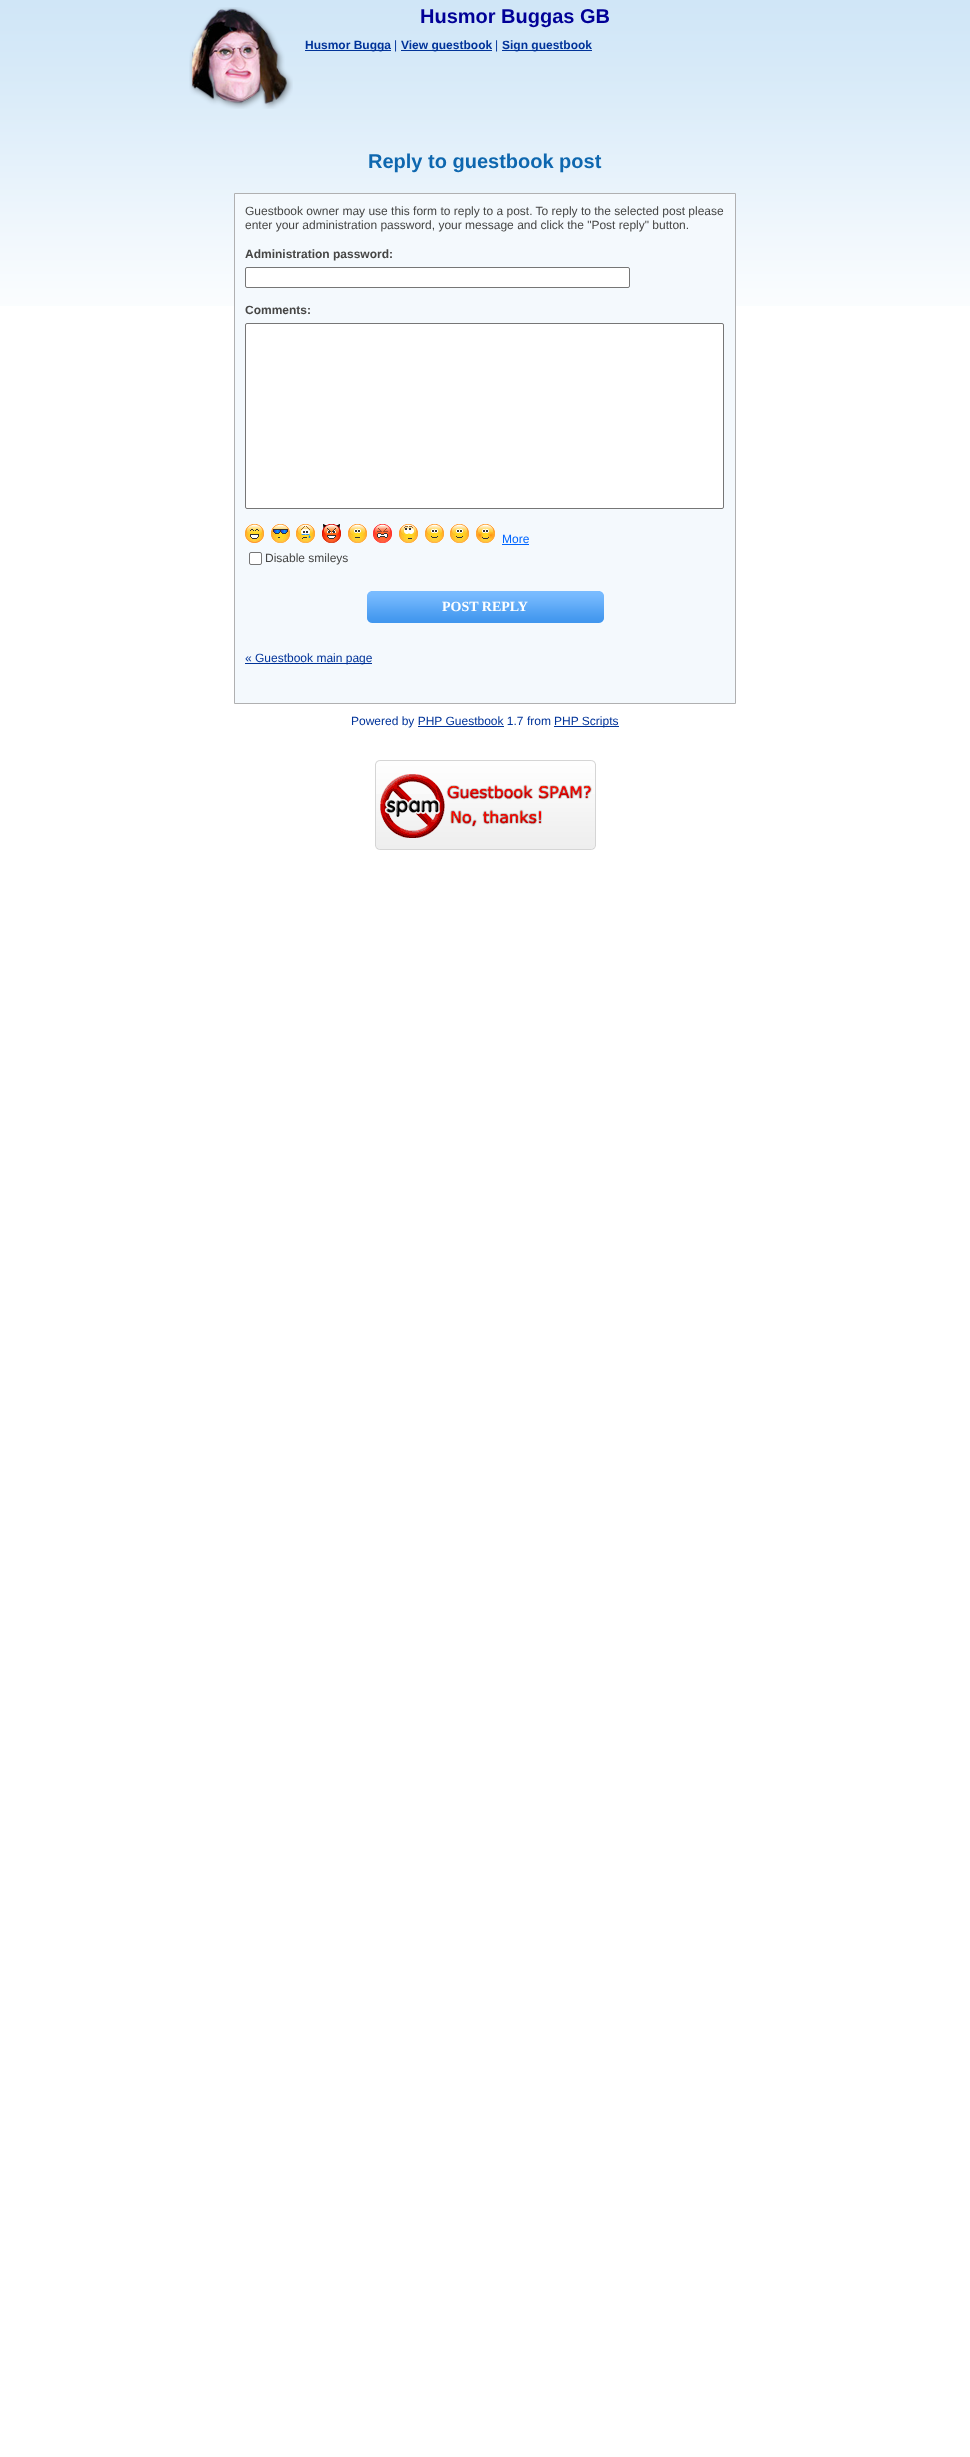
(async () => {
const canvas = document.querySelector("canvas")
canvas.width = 970
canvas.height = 2457
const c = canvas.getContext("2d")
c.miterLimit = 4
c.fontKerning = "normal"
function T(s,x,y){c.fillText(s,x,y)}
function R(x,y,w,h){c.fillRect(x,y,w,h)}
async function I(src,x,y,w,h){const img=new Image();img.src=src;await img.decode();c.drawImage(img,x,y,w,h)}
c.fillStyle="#fff"
R(0,0,970,2457)
await I("1.png",0,0,970,306)
await I("2.png",189,7,104,102)
c.font="bold 20px Liberation Sans"
c.fillStyle="#010097"
T("Husmor Buggas GB",420,23)
c.fillStyle="#039"
R(305,50,86,1)
c.font="bold 12px Liberation Sans"
T("Husmor Bugga",305,49)
c.font="12px Liberation Sans"
T("|",394,49)
R(401,50,91,1)
c.font="bold 12px Liberation Sans"
T("View guestbook",401,49)
c.font="12px Liberation Sans"
T("|",495,49)
R(502,50,90,1)
c.font="bold 12px Liberation Sans"
T("Sign guestbook",502,49)
c.font="bold 20px Liberation Sans"
c.fillStyle="#0e67af"
T("Reply to guestbook post",368,168)
c.fillStyle="#f4f9fd"
c.beginPath()
c.rect(234.5,193.5,501,510)
c.fill()
c.strokeStyle="#b0b0b1"
c.stroke()
c.font="12px Liberation Sans"
c.fillStyle="#464645"
T("Guestbook owner may use this form to reply to a post. To reply to the selected post please",245,215)
T("enter your administration password, your message and click the \"Post reply\" button.",245,229)
c.font="bold 12px Liberation Sans"
T("Administration password:",245,258)
c.fillStyle="#fff"
c.beginPath()
c.roundRect(245.5,267.5,384,20,1.5)
c.fill()
c.strokeStyle="#767676"
c.stroke()
c.fillStyle="#464645"
T("Comments:",245,314)
c.fillStyle="#fff"
c.beginPath()
c.roundRect(245.5,323.5,478,185,1.5)
c.fill()
c.stroke()
await I("3.png",245,524,19,19)
await I("4.png",271,524,19,19)
await I("5.png",296,524,19,19)
await I("6.png",322,524,19,19)
await I("7.png",348,524,19,19)
await I("8.png",373,524,19,19)
await I("9.png",399,524,19,19)
await I("10.png",425,524,19,19)
await I("11.png",450,524,19,19)
await I("12.png",476,524,19,19)
c.font="12px Liberation Sans"
c.fillStyle="#06f"
T("More",502,543)
R(502,544,27,1)
c.fillStyle="#fff"
c.beginPath()
c.roundRect(249.5,552.5,12,12,1.5)
c.fill()
c.stroke()
c.fillStyle="#464645"
T("Disable smileys",265,562)
await I("13.png",367,591,237,32)
c.font="bold 14px Liberation Serif"
c.fillStyle="#fff"
T("POST REPLY",442,611)
c.fillStyle="#039"
R(245,663,127,1)
c.font="12px Liberation Sans"
T("« Guestbook main page",245,662)
T("Powered by PHP Guestbook 1.7 from",351,725)
R(554,726,65,1)
T("PHP Scripts",554,725)
R(418,726,86,1)
await I("14.png",375,760,221,90)
})()
